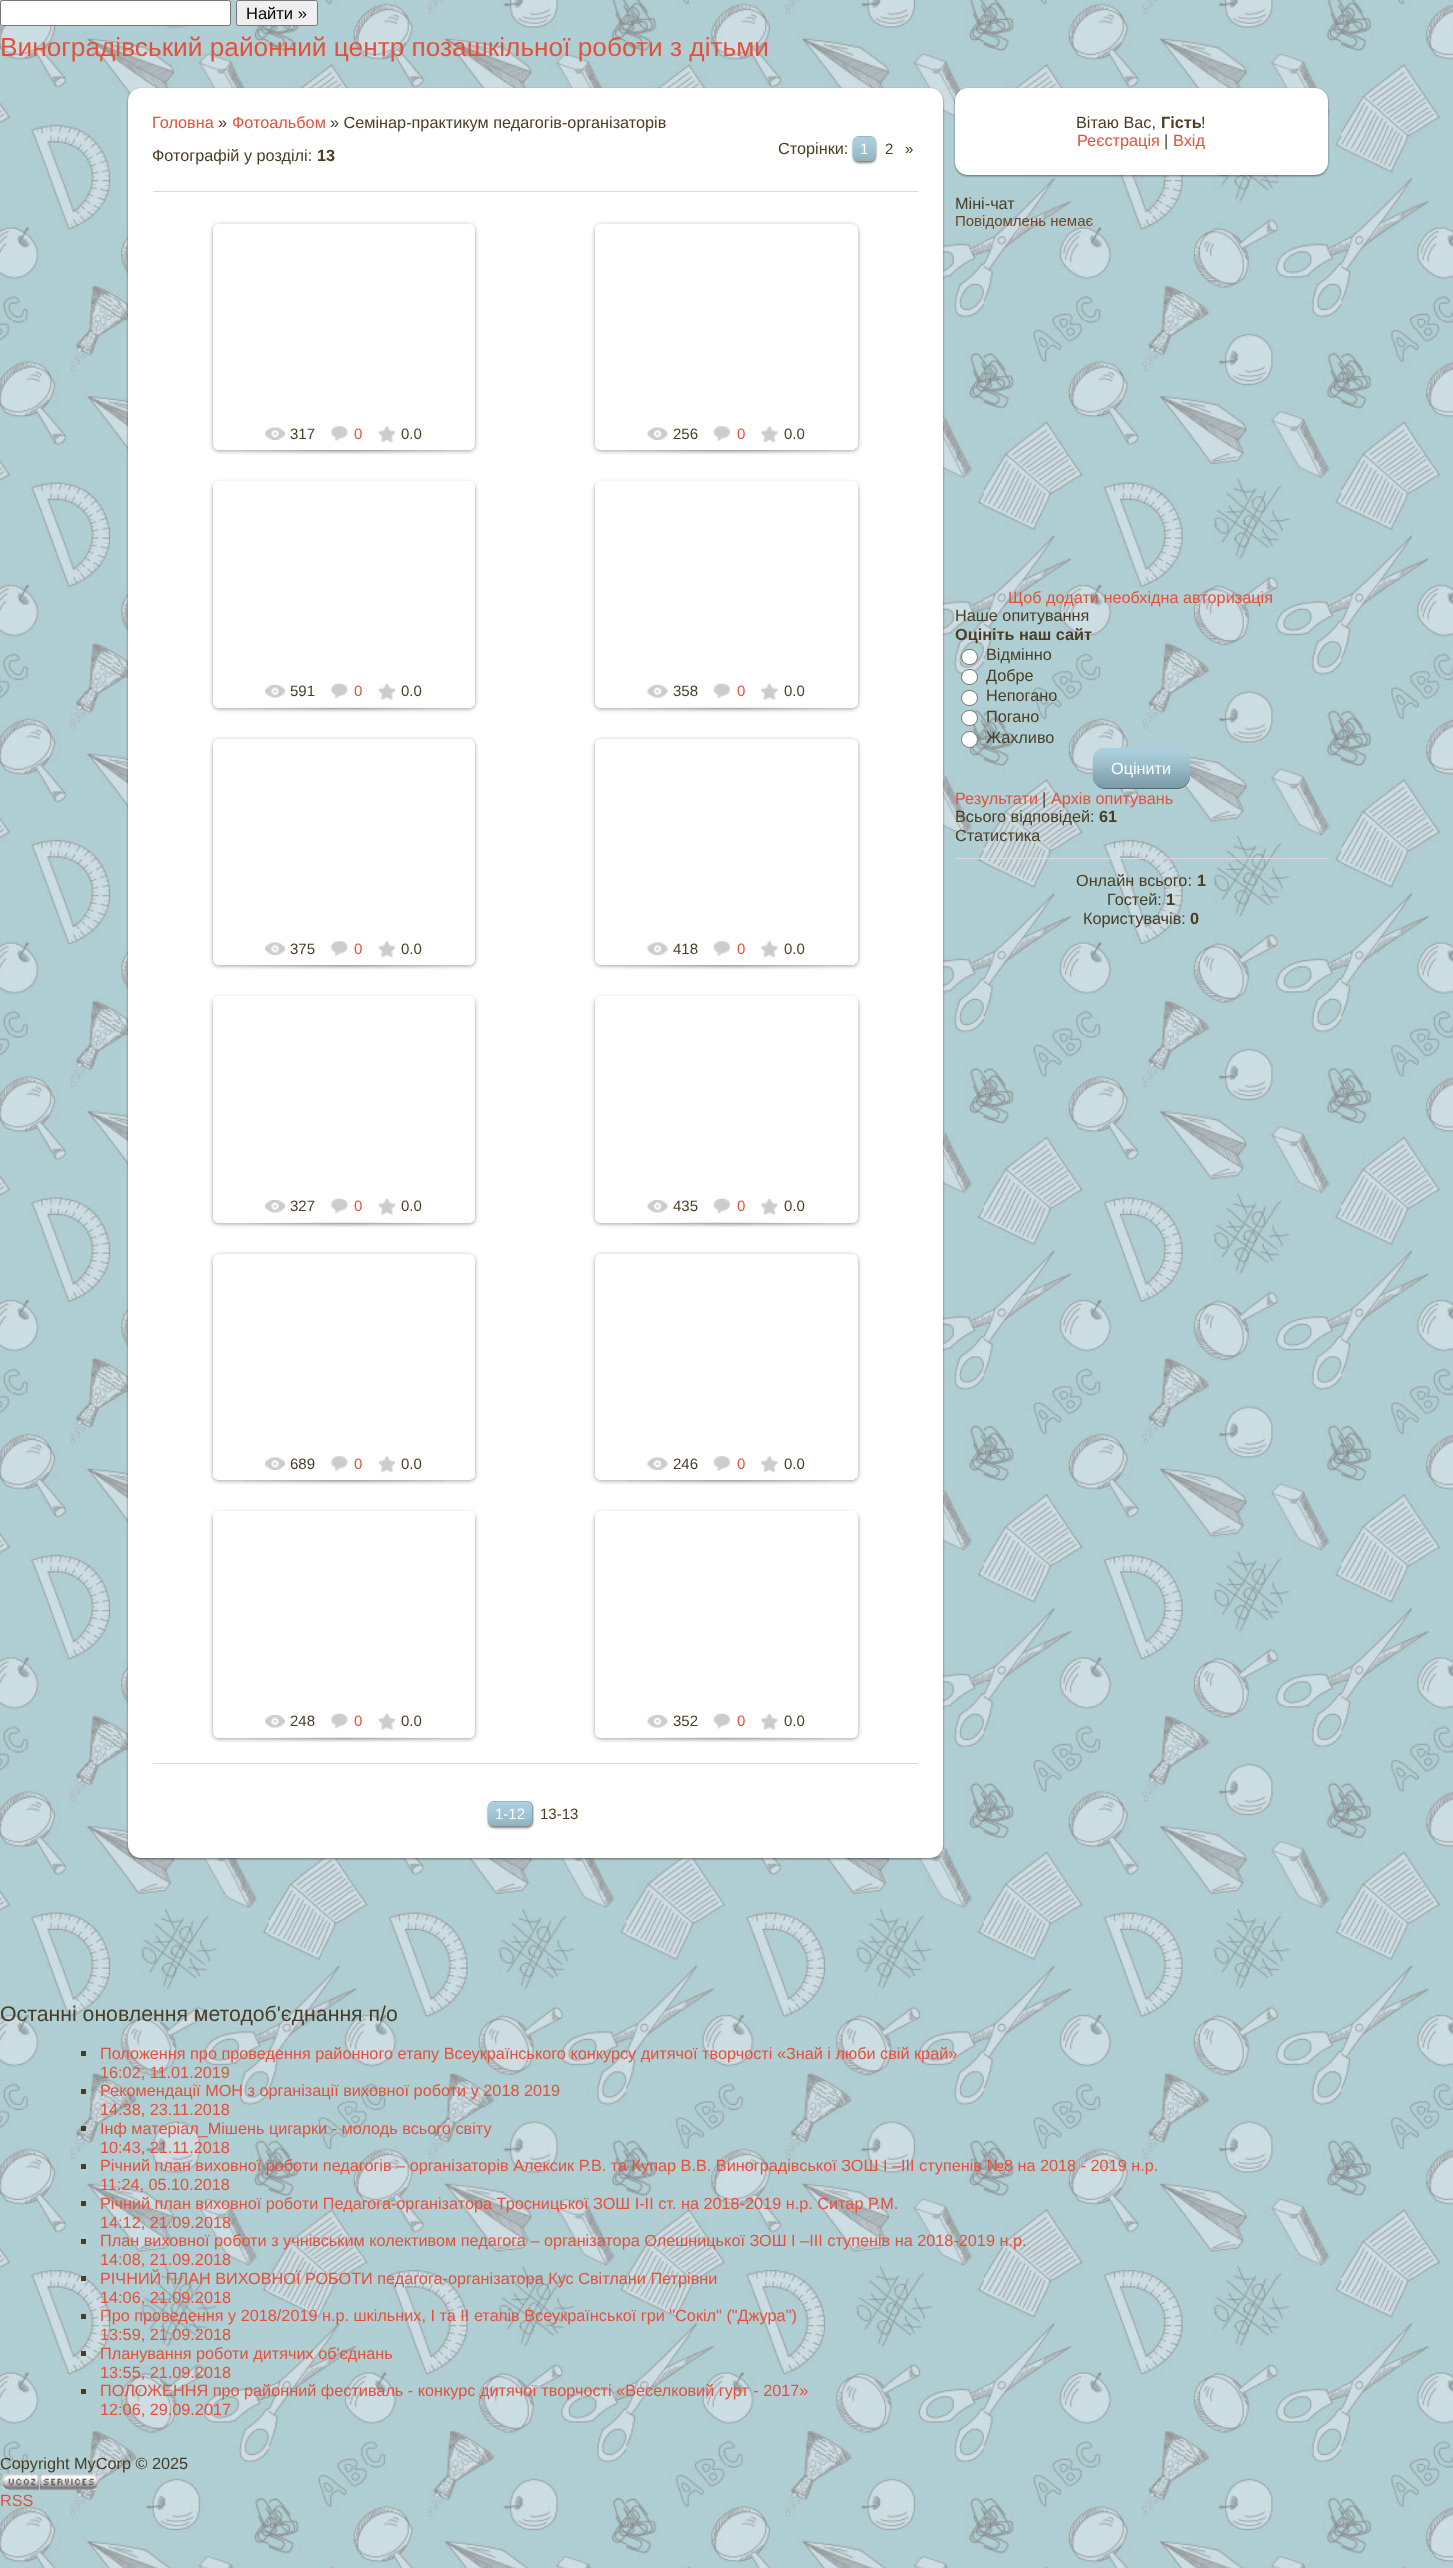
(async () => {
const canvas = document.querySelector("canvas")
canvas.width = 1453
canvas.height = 2568
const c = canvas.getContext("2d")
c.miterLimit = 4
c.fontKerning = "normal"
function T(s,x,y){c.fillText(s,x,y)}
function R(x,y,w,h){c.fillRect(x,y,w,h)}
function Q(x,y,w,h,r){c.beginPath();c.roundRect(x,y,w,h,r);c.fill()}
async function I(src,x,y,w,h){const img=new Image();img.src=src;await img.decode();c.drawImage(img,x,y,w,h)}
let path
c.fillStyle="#fff"
R(0,0,1453,2568)
await I("1.png",0,0,1453,2568)
c.beginPath()
c.roundRect(.5,.5,230,25,2)
c.fill()
c.strokeStyle="#767676"
c.stroke()
c.fillStyle="#efefef"
c.beginPath()
c.roundRect(236.5,.5,81,25,2)
c.fill()
c.stroke()
c.font="16.5px Liberation Sans"
c.fillStyle="#000"
T("Найти »",246,19)
c.font="26.25px Liberation Sans"
c.fillStyle="#e4513a"
T("Виноградівський районний центр позашкільної роботи з дітьми",0,56)
c.fillStyle="#00000080"
c.filter="blur(1px)"
c.beginPath()
c.roundRect(128,89,815,1770,13)
c.fill()
c.filter="none"
c.fillStyle="#fff"
Q(128,88,815,1770,13)
c.font="16.25px Liberation Sans"
c.fillStyle="#e4513a"
T("Головна",152,128)
c.fillStyle="#493e24"
T("»",218,128)
c.fillStyle="#e4513a"
T("Фотоальбом",232,128)
c.fillStyle="#493e24"
T("» Семінар-практикум педагогів-організаторів",330,128)
T("Фотографій у розділі:",152,161)
c.font="bold 16.25px Liberation Sans"
T("13",317,161)
c.font="16.25px Liberation Sans"
T("Сторінки:",778,154)
c.fillStyle="#00000080"
c.filter="blur(1px)"
c.beginPath()
c.roundRect(853,138,23,25,6)
c.fill()
c.filter="none"
c.fillStyle="#7394a0"
Q(853,136,23,25,6)
await I("2.png",852,136,25,25)
c.font="15px Liberation Sans"
c.fillStyle="#fff"
T("1",860,154)
c.fillStyle="#493e24"
T("2",885,154)
T("»",905,154)
c.fillStyle="#dadada"
R(153,191,765,1)
c.save()
path = new Path2D("M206 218h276v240h-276zm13 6h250c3.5 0 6 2.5 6 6v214c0 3.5-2.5 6-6 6h-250c-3.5 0-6-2.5-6-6v-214c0-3.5 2.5-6 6-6z")
c.clip(path,"evenodd")
c.fillStyle="#0000005e"
c.filter="blur(2px)"
c.beginPath()
c.roundRect(213,225,262,226,6)
c.fill()
c.filter="none"
c.restore()
await I("3.png",265,427,20,13)
c.fillStyle="#493e24"
T("317",290,439)
await I("4.png",331,426,17,15)
c.fillStyle="#e4513a"
T("0",354,439)
await I("5.png",378,426,17,17)
c.fillStyle="#493e24"
T("0.0",401,439)
await I("6.png",244,450,200,4)
c.save()
path = new Path2D("M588 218h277v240h-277zm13 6h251c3.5 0 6 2.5 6 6v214c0 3.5-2.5 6-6 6h-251c-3.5 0-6-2.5-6-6v-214c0-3.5 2.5-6 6-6z")
c.clip(path,"evenodd")
c.fillStyle="#0000005e"
c.filter="blur(2px)"
c.beginPath()
c.roundRect(595,225,263,226,6)
c.fill()
c.filter="none"
c.restore()
c.fillStyle="#dadada"
R(855,448,1,1)
await I("7.png",647,427,21,13)
c.fillStyle="#493e24"
T("256",673,439)
await I("8.png",713,426,17,15)
c.fillStyle="#e4513a"
T("0",737,439)
await I("9.png",761,426,17,17)
c.fillStyle="#493e24"
T("0.0",784,439)
await I("10.png",627,450,200,4)
c.save()
path = new Path2D("M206 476h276v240h-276zm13 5h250c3.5 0 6 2.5 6 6v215c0 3.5-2.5 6-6 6h-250c-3.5 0-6-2.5-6-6v-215c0-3.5 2.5-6 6-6z")
c.clip(path,"evenodd")
c.fillStyle="#0000005e"
c.filter="blur(2px)"
c.beginPath()
c.roundRect(213,483,262,226,6)
c.fill()
c.filter="none"
c.restore()
await I("11.png",265,685,20,13)
T("591",290,696)
await I("12.png",331,683,17,16)
c.fillStyle="#e4513a"
T("0",354,696)
await I("13.png",378,683,17,17)
c.fillStyle="#493e24"
T("0.0",401,696)
await I("14.png",248,707,193,5)
c.save()
path = new Path2D("M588 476h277v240h-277zm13 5h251c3.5 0 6 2.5 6 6v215c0 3.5-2.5 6-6 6h-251c-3.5 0-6-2.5-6-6v-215c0-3.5 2.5-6 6-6z")
c.clip(path,"evenodd")
c.fillStyle="#0000005e"
c.filter="blur(2px)"
c.beginPath()
c.roundRect(595,483,263,226,6)
c.fill()
c.filter="none"
c.restore()
await I("15.png",647,685,21,13)
T("358",673,696)
await I("16.png",713,683,17,16)
c.fillStyle="#e4513a"
T("0",737,696)
await I("17.png",761,683,17,17)
c.fillStyle="#493e24"
T("0.0",784,696)
await I("18.png",630,707,194,5)
c.save()
path = new Path2D("M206 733h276v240h-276zm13 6h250c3.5 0 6 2.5 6 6v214c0 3.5-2.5 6-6 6h-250c-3.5 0-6-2.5-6-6v-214c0-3.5 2.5-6 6-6z")
c.clip(path,"evenodd")
c.fillStyle="#0000005e"
c.filter="blur(2px)"
c.beginPath()
c.roundRect(213,740,262,226,6)
c.fill()
c.filter="none"
c.restore()
await I("3.png",265,942,20,13)
T("375",290,954)
await I("4.png",331,941,17,15)
c.fillStyle="#e4513a"
T("0",354,954)
await I("5.png",378,941,17,17)
c.fillStyle="#493e24"
T("0.0",401,954)
await I("6.png",244,965,200,4)
c.save()
path = new Path2D("M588 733h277v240h-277zm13 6h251c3.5 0 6 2.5 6 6v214c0 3.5-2.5 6-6 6h-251c-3.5 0-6-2.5-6-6v-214c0-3.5 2.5-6 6-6z")
c.clip(path,"evenodd")
c.fillStyle="#0000005e"
c.filter="blur(2px)"
c.beginPath()
c.roundRect(595,740,263,226,6)
c.fill()
c.filter="none"
c.restore()
c.fillStyle="#dadada"
R(855,963,1,1)
await I("7.png",647,942,21,13)
c.fillStyle="#493e24"
T("418",673,954)
await I("8.png",713,941,17,15)
c.fillStyle="#e4513a"
T("0",737,954)
await I("9.png",761,941,17,17)
c.fillStyle="#493e24"
T("0.0",784,954)
await I("10.png",627,965,200,4)
c.save()
path = new Path2D("M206 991h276v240h-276zm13 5h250c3.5 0 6 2.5 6 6v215c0 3.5-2.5 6-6 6h-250c-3.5 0-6-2.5-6-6v-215c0-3.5 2.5-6 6-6z")
c.clip(path,"evenodd")
c.fillStyle="#0000005e"
c.filter="blur(2px)"
c.beginPath()
c.roundRect(213,998,262,226,6)
c.fill()
c.filter="none"
c.restore()
await I("11.png",265,1200,20,13)
T("327",290,1211)
await I("12.png",331,1198,17,16)
c.fillStyle="#e4513a"
T("0",354,1211)
await I("13.png",378,1198,17,17)
c.fillStyle="#493e24"
T("0.0",401,1211)
await I("14.png",248,1222,193,5)
c.save()
path = new Path2D("M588 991h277v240h-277zm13 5h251c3.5 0 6 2.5 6 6v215c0 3.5-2.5 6-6 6h-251c-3.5 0-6-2.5-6-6v-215c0-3.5 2.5-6 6-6z")
c.clip(path,"evenodd")
c.fillStyle="#0000005e"
c.filter="blur(2px)"
c.beginPath()
c.roundRect(595,998,263,226,6)
c.fill()
c.filter="none"
c.restore()
await I("15.png",647,1200,21,13)
T("435",673,1211)
await I("16.png",713,1198,17,16)
c.fillStyle="#e4513a"
T("0",737,1211)
await I("17.png",761,1198,17,17)
c.fillStyle="#493e24"
T("0.0",784,1211)
await I("18.png",630,1222,194,5)
c.save()
path = new Path2D("M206 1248h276v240h-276zm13 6h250c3.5 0 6 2.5 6 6v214c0 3.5-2.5 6-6 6h-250c-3.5 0-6-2.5-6-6v-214c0-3.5 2.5-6 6-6z")
c.clip(path,"evenodd")
c.fillStyle="#0000005e"
c.filter="blur(2px)"
c.beginPath()
c.roundRect(213,1255,262,226,6)
c.fill()
c.filter="none"
c.restore()
await I("3.png",265,1457,20,13)
T("689",290,1469)
await I("4.png",331,1456,17,15)
c.fillStyle="#e4513a"
T("0",354,1469)
await I("5.png",378,1456,17,17)
c.fillStyle="#493e24"
T("0.0",401,1469)
await I("6.png",244,1480,200,4)
c.save()
path = new Path2D("M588 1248h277v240h-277zm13 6h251c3.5 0 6 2.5 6 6v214c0 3.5-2.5 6-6 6h-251c-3.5 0-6-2.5-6-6v-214c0-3.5 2.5-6 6-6z")
c.clip(path,"evenodd")
c.fillStyle="#0000005e"
c.filter="blur(2px)"
c.beginPath()
c.roundRect(595,1255,263,226,6)
c.fill()
c.filter="none"
c.restore()
c.fillStyle="#dadada"
R(855,1478,1,1)
await I("7.png",647,1457,21,13)
c.fillStyle="#493e24"
T("246",673,1469)
await I("8.png",713,1456,17,15)
c.fillStyle="#e4513a"
T("0",737,1469)
await I("9.png",761,1456,17,17)
c.fillStyle="#493e24"
T("0.0",784,1469)
await I("10.png",627,1480,200,4)
c.save()
path = new Path2D("M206 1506h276v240h-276zm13 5h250c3.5 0 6 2.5 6 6v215c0 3.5-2.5 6-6 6h-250c-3.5 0-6-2.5-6-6v-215c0-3.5 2.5-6 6-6z")
c.clip(path,"evenodd")
c.fillStyle="#0000005e"
c.filter="blur(2px)"
c.beginPath()
c.roundRect(213,1513,262,226,6)
c.fill()
c.filter="none"
c.restore()
await I("11.png",265,1715,20,13)
T("248",290,1726)
await I("12.png",331,1713,17,16)
c.fillStyle="#e4513a"
T("0",354,1726)
await I("13.png",378,1713,17,17)
c.fillStyle="#493e24"
T("0.0",401,1726)
await I("14.png",248,1737,193,5)
c.save()
path = new Path2D("M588 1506h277v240h-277zm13 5h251c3.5 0 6 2.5 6 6v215c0 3.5-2.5 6-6 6h-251c-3.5 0-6-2.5-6-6v-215c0-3.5 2.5-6 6-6z")
c.clip(path,"evenodd")
c.fillStyle="#0000005e"
c.filter="blur(2px)"
c.beginPath()
c.roundRect(595,1513,263,226,6)
c.fill()
c.filter="none"
c.restore()
await I("15.png",647,1715,21,13)
T("352",673,1726)
await I("16.png",713,1713,17,16)
c.fillStyle="#e4513a"
T("0",737,1726)
await I("17.png",761,1713,17,17)
c.fillStyle="#493e24"
T("0.0",784,1726)
await I("18.png",630,1737,194,5)
c.fillStyle="#dadada"
R(153,1763,765,1)
c.fillStyle="#00000080"
c.filter="blur(1px)"
c.beginPath()
c.roundRect(488,1803,45,25,6)
c.fill()
c.filter="none"
c.fillStyle="#7394a0"
Q(488,1801,45,25,6)
await I("19.png",487,1801,46,25)
c.fillStyle="#fff"
T("1-12",495,1819)
c.fillStyle="#493e24"
T("13-13",540,1819)
c.fillStyle="#00000080"
c.filter="blur(1px)"
c.beginPath()
c.roundRect(955,89,373,87,13)
c.fill()
c.filter="none"
c.fillStyle="#fff"
Q(955,88,373,87,13)
c.font="16.25px Liberation Sans"
c.fillStyle="#493e24"
T("Вітаю Вас,",1076,128)
c.font="bold 16.25px Liberation Sans"
T("Гість",1161,128)
c.font="16.25px Liberation Sans"
T("!",1201,128)
c.fillStyle="#e4513a"
T("Реєстрація",1077,146)
c.fillStyle="#493e24"
T("|",1164,146)
c.fillStyle="#e4513a"
T("Вхід",1173,146)
c.fillStyle="#493e24"
T("Міні-чат",955,209)
await I("20.png",956,215,137,14)
c.fillStyle="#e4513a"
T("Щоб додати необхідна авторизація",1008,603)
c.fillStyle="#493e24"
T("Наше опитування",955,621)
c.font="bold 16.25px Liberation Sans"
T("Оцініть наш сайт",955,640)
c.fillStyle="#fff"
c.beginPath()
c.roundRect(961.5,649.5,16,15,7.5)
c.fill()
c.stroke()
c.font="16.25px Liberation Sans"
c.fillStyle="#493e24"
T("Відмінно",986,660)
c.fillStyle="#fff"
c.beginPath()
c.roundRect(961.5,669.5,16,15,7.5)
c.fill()
c.stroke()
c.fillStyle="#493e24"
T("Добре",986,681)
c.fillStyle="#fff"
c.beginPath()
c.roundRect(961.5,690.5,16,15,7.5)
c.fill()
c.stroke()
c.fillStyle="#493e24"
T("Непогано",986,701)
c.fillStyle="#fff"
c.beginPath()
c.roundRect(961.5,710.5,16,15,7.5)
c.fill()
c.stroke()
c.fillStyle="#493e24"
T("Погано",986,722)
c.fillStyle="#fff"
c.beginPath()
c.arc(969.5,739.5,8,0,7)
c.fill()
c.stroke()
c.fillStyle="#493e24"
T("Жахливо",986,743)
c.fillStyle="#7394a0"
Q(1093,748,97,41,13)
await I("21.png",1092,747,98,42)
c.fillStyle="#0000004d"
path = new Path2D("M1096 784c2 3 6 5 10 5h71c7 0 13-6 13-13v-1c0 7-6 13-12 13h-73c-4 0-7-2-9-4z")
c.fill(path)
c.fillStyle="#fff"
T("Оцінити",1111,774)
c.fillStyle="#e4513a"
T("Результати",955,804)
c.fillStyle="#493e24"
T("|",1042,804)
c.fillStyle="#e4513a"
T("Архів опитувань",1051,804)
c.fillStyle="#493e24"
T("Всього відповідей:",955,822)
c.font="bold 16.25px Liberation Sans"
T("61",1099,822)
c.font="16.25px Liberation Sans"
T("Статистика",955,841)
c.fillStyle="#dadada"
R(955,858,373,1)
c.fillStyle="#493e24"
T("Онлайн всього:",1076,886)
c.font="bold 16.25px Liberation Sans"
T("1",1197,886)
c.font="16.25px Liberation Sans"
T("Гостей:",1107,905)
c.font="bold 16.25px Liberation Sans"
T("1",1166,905)
c.font="16.25px Liberation Sans"
T("Користувачів:",1083,924)
c.font="bold 16.25px Liberation Sans"
T("0",1190,924)
c.font="21.25px Liberation Sans"
T("Останні оновлення методоб'єднання п/о",0,2021)
R(81,2051,5,5)
c.font="16.25px Liberation Sans"
c.fillStyle="#e4513a"
T("Положення про проведення районного етапу Всеукраїнського конкурсу дитячої творчості «Знай і люби свій край»",100,2059)
T("16:02, 11.01.2019",100,2078)
c.fillStyle="#493e24"
R(81,2089,5,5)
c.fillStyle="#e4513a"
T("Рекомендації МОН з організації виховної роботи у 2018 2019",100,2096)
T("14:38, 23.11.2018",100,2115)
c.fillStyle="#493e24"
R(81,2126,5,5)
c.fillStyle="#e4513a"
T("Інф матеріал_Мішень цигарки - молодь всього світу",100,2134)
T("10:43, 21.11.2018",100,2153)
c.fillStyle="#493e24"
R(81,2164,5,5)
c.fillStyle="#e4513a"
T("Річний план виховної роботи педагогів – організаторів Алексик Р.В. та Купар В.В. Виноградівської ЗОШ І –ІІІ ступенів №8 на 2018 - 2019 н.р.",100,2171)
T("11:24, 05.10.2018",100,2190)
c.fillStyle="#493e24"
R(81,2201,5,5)
c.fillStyle="#e4513a"
T("Річний план виховної роботи Педагога-організатора Тросницької ЗОШ I-II ст. на 2018-2019 н.р. Ситар Р.М.",100,2209)
T("14:12, 21.09.2018",100,2228)
c.fillStyle="#493e24"
R(81,2239,5,5)
c.fillStyle="#e4513a"
T("План виховної роботи з учнівським колективом педагога – організаторa Олешницької ЗОШ І –ІІІ ступенів на 2018-2019 н.р.",100,2246)
T("14:08, 21.09.2018",100,2265)
c.fillStyle="#493e24"
R(81,2276,5,5)
c.fillStyle="#e4513a"
T("РІЧНИЙ ПЛАН ВИХОВНОЇ РОБОТИ педагога-організатора Кус Світлани Петрівни",100,2284)
T("14:06, 21.09.2018",100,2303)
c.fillStyle="#493e24"
R(81,2314,5,5)
c.fillStyle="#e4513a"
T("Про проведення у 2018/2019 н.р. шкільних, І та ІІ етапів Всеукраїнської гри \"Сокіл\" (\"Джура\")",100,2321)
T("13:59, 21.09.2018",100,2340)
c.fillStyle="#493e24"
R(81,2351,5,5)
c.fillStyle="#e4513a"
T("Планування роботи дитячих об'єднань",100,2359)
T("13:55, 21.09.2018",100,2378)
c.fillStyle="#493e24"
R(81,2389,5,5)
c.fillStyle="#e4513a"
T("ПОЛОЖЕННЯ про районний фестиваль - конкурс дитячої творчості «Веселковий гурт - 2017»",100,2396)
T("12:06, 29.09.2017",100,2415)
c.fillStyle="#493e24"
T("Copyright MyCorp © 2025",0,2469)
await I("22.png",1,2473,98,18)
c.fillStyle="#e4513a"
T("RSS",0,2506)
})()
